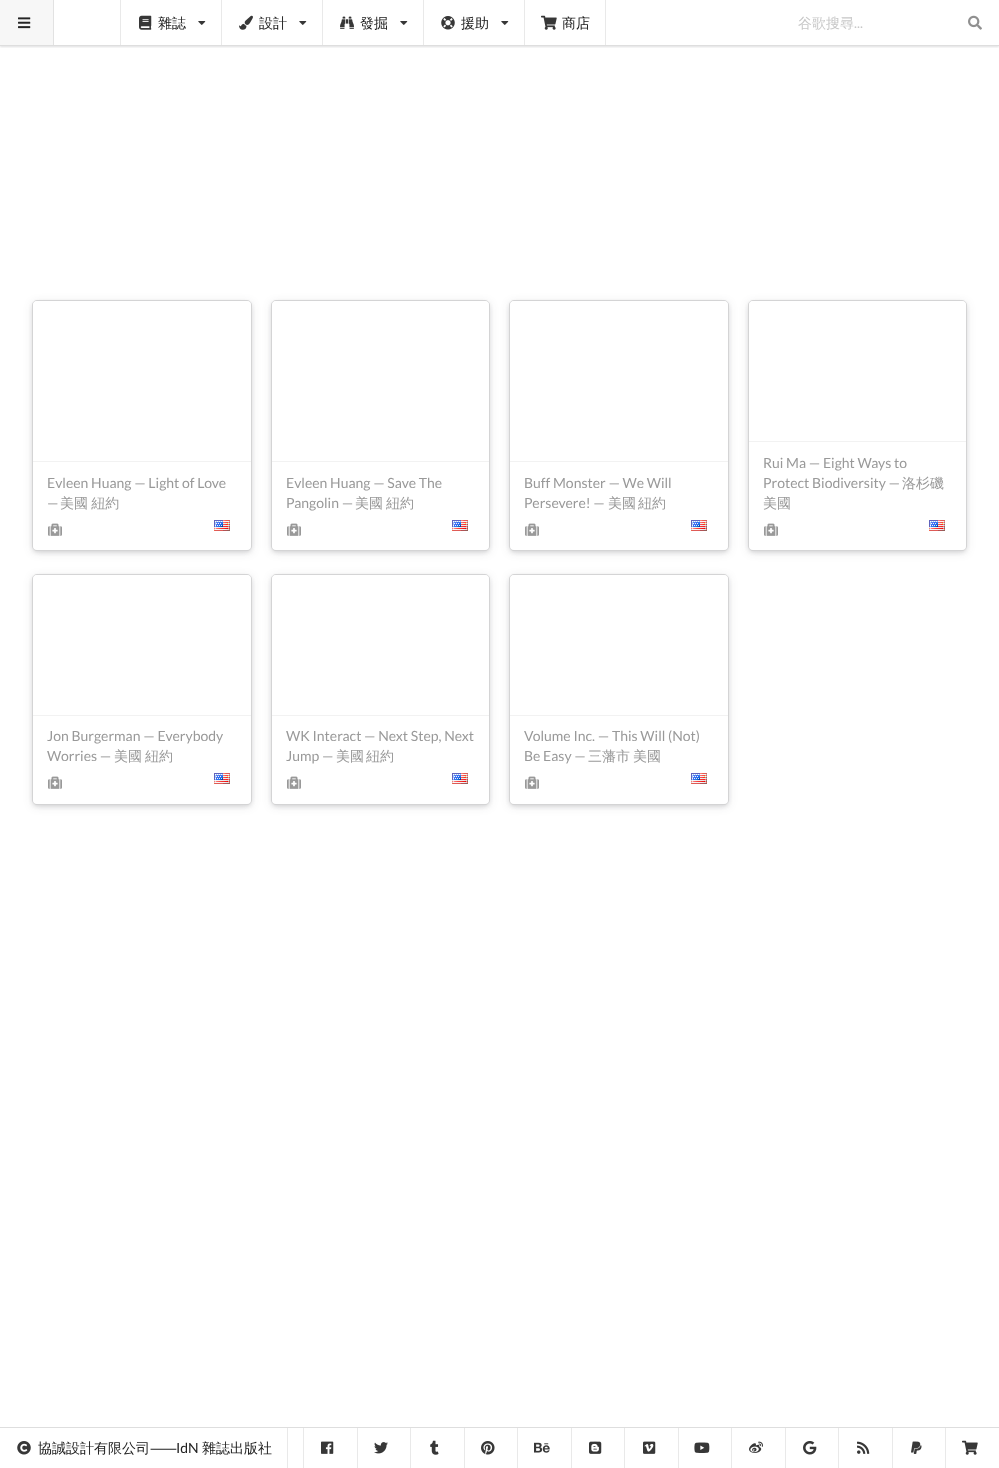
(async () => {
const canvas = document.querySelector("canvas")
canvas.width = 999
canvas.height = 1468
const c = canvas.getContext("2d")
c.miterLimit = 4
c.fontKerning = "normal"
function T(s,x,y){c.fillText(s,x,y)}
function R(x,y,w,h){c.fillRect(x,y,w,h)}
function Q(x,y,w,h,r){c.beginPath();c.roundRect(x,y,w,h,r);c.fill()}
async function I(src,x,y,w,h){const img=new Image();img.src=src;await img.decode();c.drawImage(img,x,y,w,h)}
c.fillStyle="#fff"
R(0,0,999,1468)
c.save()
c.beginPath()
c.rect(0,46,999,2)
c.clip()
c.fillStyle="#22242626"
c.filter="blur(1px)"
c.beginPath()
c.rect(0,1,999,46)
c.fill()
c.filter="none"
c.restore()
c.fillStyle="#dedede"
R(0,45,999,1)
c.fillStyle="#f7f7f7"
R(0,0,53,45)
await I("1.png",18,17,13,12)
c.fillStyle="#e2e2e2"
R(53,0,1,45)
c.fillStyle="#e9e9e9"
R(120,0,1,45)
await I("2.png",139,15,13,15)
c.font="500 14px WenQuanYi Zen Hei"
c.fillStyle="#212121"
T("雜誌",158,28)
await I("3.png",198,21,8,4)
c.fillStyle="#e9e9e9"
R(221,0,1,45)
await I("4.png",239,15,14,15)
c.fillStyle="#212121"
T("設計",259,28)
await I("3.png",299,21,8,4)
c.fillStyle="#e9e9e9"
R(322,0,1,45)
await I("5.png",340,16,14,13)
c.fillStyle="#212121"
T("發掘",360,28)
await I("3.png",400,21,8,4)
c.fillStyle="#e9e9e9"
R(423,0,1,45)
await I("6.png",441,16,14,14)
c.fillStyle="#212121"
T("援助",461,28)
await I("3.png",501,21,8,4)
c.fillStyle="#e9e9e9"
R(524,0,1,45)
await I("7.png",541,15,16,15)
c.fillStyle="#212121"
T("商店",562,28)
c.fillStyle="#e9e9e9"
R(605,0,1,45)
c.fillStyle="#c7c7c7"
T("谷歌搜尋",798,28)
c.font="14px Lato"
T("...",854,28)
await I("8.png",968,15,14,15)
c.fillStyle="#22242626"
c.filter="blur(5px)"
c.beginPath()
c.roundRect(33,303,218,249,4)
c.fill()
c.filter="none"
c.fillStyle="#2224261f"
c.filter="blur(2px)"
c.beginPath()
c.roundRect(33,303,218,249,4)
c.fill()
c.filter="none"
c.beginPath()
c.roundRect(32.5,300.5,219,250,4.5)
c.strokeStyle="#d4d4d5"
c.stroke()
c.fillStyle="#fff"
Q(33,301,218,249,4)
c.fillStyle="#f2f2f2"
R(33,461,218,1)
c.fillStyle="#999"
T("Evleen Huang — Light of Love",47,488)
T("—",47,508)
c.wordSpacing="-1px"
c.font="500 14px WenQuanYi Zen Hei"
T("美國 紐約",60,508)
await I("9.png",48,523,14,13)
await I("10.png",214,520,16,11)
c.fillStyle="#22242626"
c.filter="blur(5px)"
c.beginPath()
c.roundRect(272,303,217,249,4)
c.fill()
c.filter="none"
c.fillStyle="#2224261f"
c.filter="blur(2px)"
c.beginPath()
c.roundRect(272,303,217,249,4)
c.fill()
c.filter="none"
c.beginPath()
c.roundRect(271.5,300.5,218,250,4.5)
c.stroke()
c.fillStyle="#fff"
Q(272,301,217,249,4)
c.fillStyle="#f2f2f2"
R(272,461,217,1)
c.wordSpacing="0px"
c.font="14px Lato"
c.fillStyle="#999"
T("Evleen Huang — Save The",286,488)
T("Pangolin —",286,508)
c.font="500 14px WenQuanYi Zen Hei"
T("美國",355,508)
T("紐約",386,508)
await I("9.png",287,523,14,13)
await I("10.png",452,520,16,11)
c.fillStyle="#22242626"
c.filter="blur(5px)"
c.beginPath()
c.roundRect(510,303,218,249,4)
c.fill()
c.filter="none"
c.fillStyle="#2224261f"
c.filter="blur(2px)"
c.beginPath()
c.roundRect(510,303,218,249,4)
c.fill()
c.filter="none"
c.beginPath()
c.roundRect(509.5,300.5,219,250,4.5)
c.stroke()
c.fillStyle="#fff"
Q(510,301,218,249,4)
c.fillStyle="#f2f2f2"
R(510,461,218,1)
c.font="14px Lato"
c.fillStyle="#999"
T("Buff Monster — We Will",524,488)
T("Persevere! —",524,508)
c.font="500 14px WenQuanYi Zen Hei"
T("美國",608,508)
T("紐約",638,508)
await I("9.png",525,523,14,13)
await I("10.png",691,520,16,11)
c.fillStyle="#22242626"
c.filter="blur(5px)"
c.beginPath()
c.roundRect(749,303,217,249,4)
c.fill()
c.filter="none"
c.fillStyle="#2224261f"
c.filter="blur(2px)"
c.beginPath()
c.roundRect(749,303,217,249,4)
c.fill()
c.filter="none"
c.beginPath()
c.roundRect(748.5,300.5,218,250,4.5)
c.stroke()
c.fillStyle="#fff"
Q(749,301,217,249,4)
c.fillStyle="#f2f2f2"
R(749,441,217,1)
c.font="14px Lato"
c.fillStyle="#999"
T("Rui Ma — Eight Ways to",763,468)
T("Protect Biodiversity —",763,488)
c.font="500 14px WenQuanYi Zen Hei"
T("洛杉磯",902,488)
T("美國",763,508)
await I("9.png",764,523,14,13)
await I("10.png",929,520,16,11)
c.fillStyle="#22242626"
c.filter="blur(5px)"
c.beginPath()
c.roundRect(33,577,218,229,4)
c.fill()
c.filter="none"
c.fillStyle="#2224261f"
c.filter="blur(2px)"
c.beginPath()
c.roundRect(33,577,218,229,4)
c.fill()
c.filter="none"
c.beginPath()
c.roundRect(32.5,574.5,219,230,4.5)
c.stroke()
c.fillStyle="#fff"
Q(33,575,218,229,4)
c.fillStyle="#f2f2f2"
R(33,715,218,1)
c.font="14px Lato"
c.fillStyle="#999"
T("Jon Burgerman — Everybody",47,741)
T("Worries —",47,761)
c.font="500 14px WenQuanYi Zen Hei"
T("美國",114,761)
T("紐約",145,761)
await I("9.png",48,776,14,13)
await I("10.png",214,773,16,11)
c.fillStyle="#22242626"
c.filter="blur(5px)"
c.beginPath()
c.roundRect(272,577,217,229,4)
c.fill()
c.filter="none"
c.fillStyle="#2224261f"
c.filter="blur(2px)"
c.beginPath()
c.roundRect(272,577,217,229,4)
c.fill()
c.filter="none"
c.beginPath()
c.roundRect(271.5,574.5,218,230,4.5)
c.stroke()
c.fillStyle="#fff"
Q(272,575,217,229,4)
c.fillStyle="#f2f2f2"
R(272,715,217,1)
c.font="14px Lato"
c.fillStyle="#999"
T("WK Interact — Next Step, Next",286,741)
T("Jump —",286,761)
c.font="500 14px WenQuanYi Zen Hei"
T("美國",336,761)
T("紐約",366,761)
await I("9.png",287,776,14,13)
await I("10.png",452,773,16,11)
c.fillStyle="#22242626"
c.filter="blur(5px)"
c.beginPath()
c.roundRect(510,577,218,229,4)
c.fill()
c.filter="none"
c.fillStyle="#2224261f"
c.filter="blur(2px)"
c.beginPath()
c.roundRect(510,577,218,229,4)
c.fill()
c.filter="none"
c.beginPath()
c.roundRect(509.5,574.5,219,230,4.5)
c.stroke()
c.fillStyle="#fff"
Q(510,575,218,229,4)
c.fillStyle="#f2f2f2"
R(510,715,218,1)
c.font="14px Lato"
c.fillStyle="#999"
T("Volume Inc. — This Will (Not)",524,741)
T("Be Easy —",524,761)
c.font="500 14px WenQuanYi Zen Hei"
T("三藩市",588,761)
T("美國",633,761)
await I("9.png",525,776,14,13)
await I("10.png",691,773,16,11)
c.fillStyle="#dedede"
R(0,1427,999,1)
await I("11.png",17,1441,14,14)
c.fillStyle="#212121"
T("協誠設計有限公司",38,1453)
c.font="14px Noto Sans"
T("⸺",150,1453)
c.font="14px Lato"
T("IdN",176,1453)
c.font="500 14px WenQuanYi Zen Hei"
T("雜誌出版社",202,1453)
c.fillStyle="#e9e9e9"
R(287,1428,1,40)
R(303,1428,1,40)
await I("12.png",321,1441,13,13)
R(357,1428,1,40)
await I("13.png",374,1442,14,12)
R(410,1428,1,40)
await I("14.png",430,1440,9,15)
R(464,1428,1,40)
await I("15.png",481,1441,14,14)
R(517,1428,1,40)
await I("16.png",534,1442,16,11)
R(571,1428,1,40)
await I("17.png",589,1441,13,13)
R(624,1428,1,40)
await I("18.png",643,1441,13,13)
R(678,1428,1,40)
await I("19.png",694,1442,16,11)
R(731,1428,1,40)
await I("20.png",749,1441,14,12)
R(785,1428,1,40)
await I("21.png",803,1441,14,14)
R(838,1428,1,40)
await I("22.png",857,1441,13,13)
R(892,1428,1,40)
await I("23.png",911,1441,11,13)
R(945,1428,1,40)
await I("7.png",962,1440,16,15)
})()
